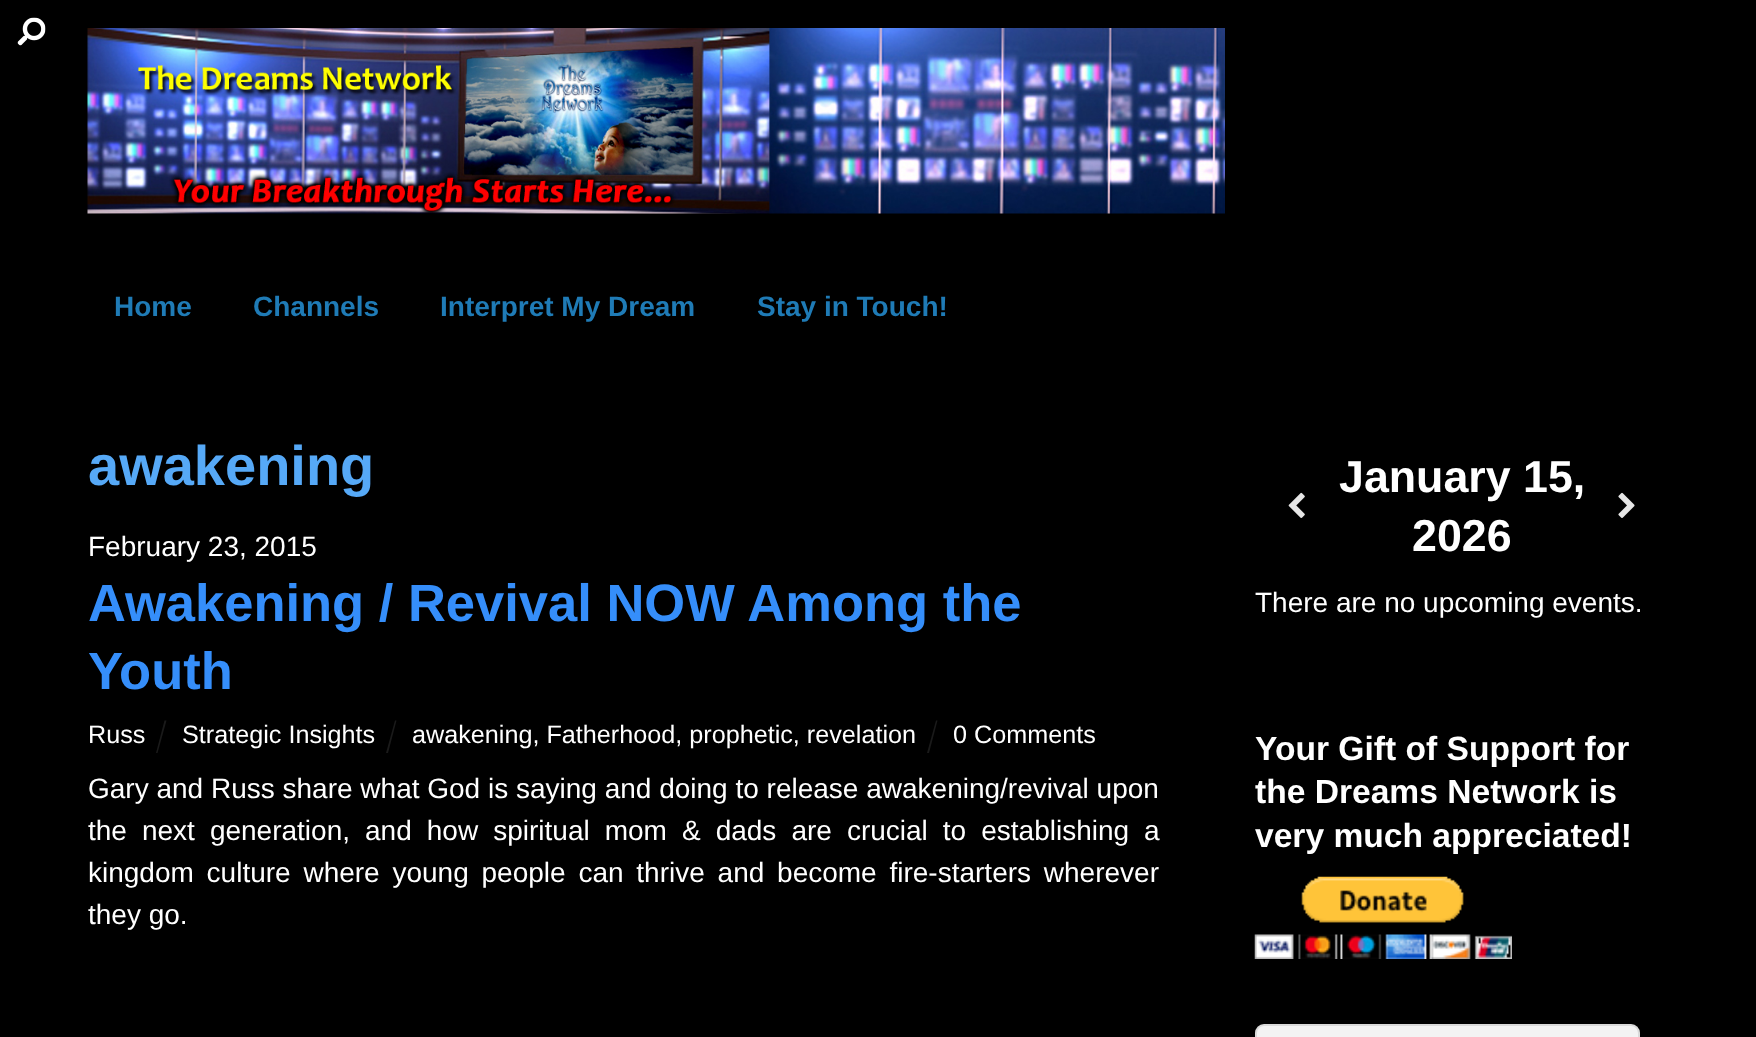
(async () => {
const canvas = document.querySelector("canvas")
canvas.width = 1756
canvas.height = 1037
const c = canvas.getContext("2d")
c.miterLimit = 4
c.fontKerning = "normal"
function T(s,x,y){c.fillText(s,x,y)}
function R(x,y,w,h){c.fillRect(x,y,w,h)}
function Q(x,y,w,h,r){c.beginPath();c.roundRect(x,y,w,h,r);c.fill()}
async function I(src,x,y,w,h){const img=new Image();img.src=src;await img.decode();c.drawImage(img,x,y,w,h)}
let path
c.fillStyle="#000"
R(0,0,1756,1037)
await I("1.png",87,28,1138,186)
c.font="bold 28px Liberation Sans"
c.fillStyle="#1f7bb6"
T("Home",114,316)
T("Channels",253,316)
T("Interpret My Dream",440,316)
T("Stay in Touch!",757,316)
c.font="bold 56px Liberation Sans"
c.fillStyle="#56a9f7"
T("awakening",88,485)
c.font="28px Liberation Sans"
c.fillStyle="#fff"
T("February 23, 2015",88,556)
c.font="bold 52.5px Liberation Sans"
c.fillStyle="#358efa"
T("Awakening / Revival NOW Among the",88,621)
T("Youth",88,689)
c.font="25.2px Liberation Sans"
c.fillStyle="#fff"
T("Russ",88,743)
c.fillStyle="#1a1a1a"
path = new Path2D("M164.5 720.5h2l-9 32.5h-1.5z")
c.fill(path)
c.fillStyle="#fff"
T("Strategic Insights",182,743)
c.fillStyle="#1a1a1a"
path = new Path2D("M395 720.5h1.5l-8.5 32.5h-2z")
c.fill(path)
c.fillStyle="#fff"
T("awakening, Fatherhood, prophetic, revelation",412,743)
c.fillStyle="#1a1a1a"
path = new Path2D("M936 720.5h1.5l-8.5 32.5h-2z")
c.fill(path)
c.fillStyle="#fff"
T("0 Comments",953,743)
c.font="28px Liberation Sans"
T("Gary and Russ share what God is saying and doing to release awakening/revival upon",88,798)
c.wordSpacing="7.25px"
T("the next generation, and how spiritual mom & dads are crucial to establishing a",88,840)
c.wordSpacing="5px"
T("kingdom culture where young people can thrive and become fire-starters wherever",88,882)
c.wordSpacing="0px"
T("they go.",88,924)
await I("2.png",17,17,29,29)
c.fillStyle="#f3f3f3"
Q(1255,1024,385,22,9)
c.beginPath()
c.roundRect(1256,1025,383,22,8)
c.strokeStyle="#0000001a"
c.lineWidth=2
c.stroke()
await I("3.png",1288,492,17,26)
c.font="bold 44.75px Liberation Sans"
c.fillStyle="#fff"
T("January 15,",1339,492)
T("2026",1412,551)
await I("4.png",1618,492,17,26)
c.font="28px Liberation Sans"
T("There are no upcoming events.",1255,612)
c.font="bold 33.6px Liberation Sans"
T("Your Gift of Support for",1255,760)
T("the Dreams Network is",1255,803)
T("very much appreciated!",1255,847)
await I("5.png",1254,876,258,83)
})()
